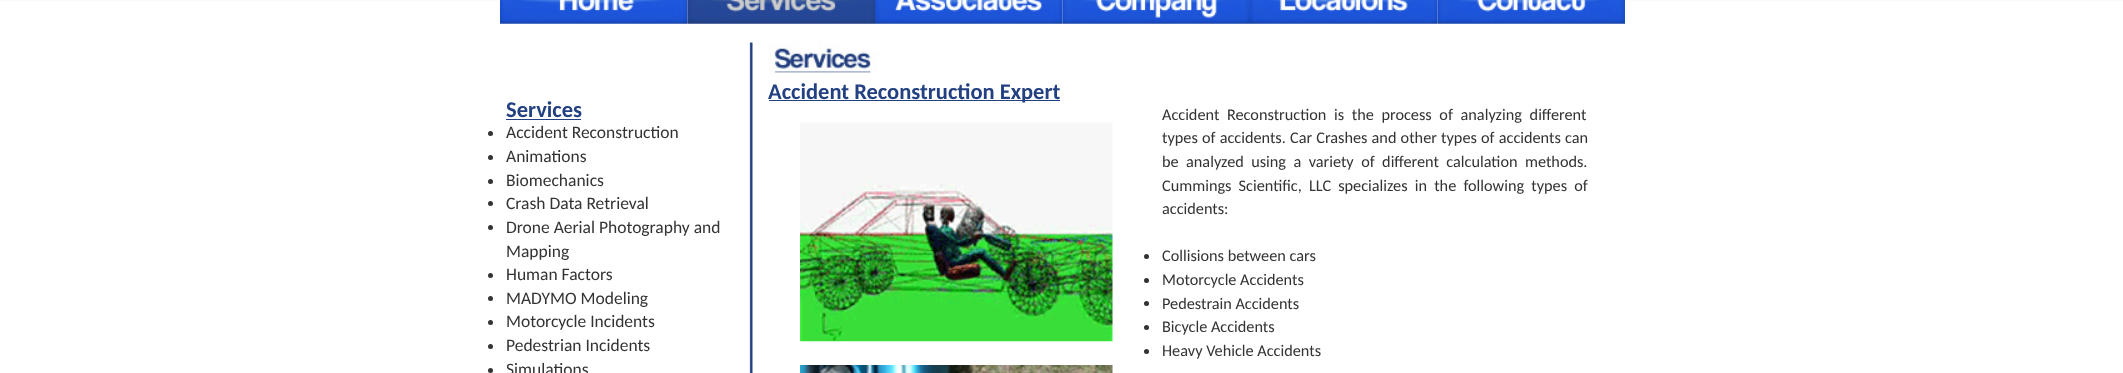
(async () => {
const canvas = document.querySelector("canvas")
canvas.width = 2123
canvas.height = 373
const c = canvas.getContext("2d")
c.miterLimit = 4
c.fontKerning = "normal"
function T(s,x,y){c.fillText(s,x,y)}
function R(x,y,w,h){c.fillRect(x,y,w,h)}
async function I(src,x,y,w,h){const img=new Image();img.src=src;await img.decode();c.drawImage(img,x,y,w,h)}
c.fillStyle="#fff"
R(0,0,2123,373)
c.fillStyle="#fafafa"
R(0,0,2123,1)
await I("1.png",500,0,188,24)
await I("2.png",687,0,188,24)
await I("3.png",875,0,188,24)
await I("4.png",1062,0,188,24)
await I("5.png",1250,0,188,24)
await I("6.png",1437,0,188,24)
await I("7.png",749,42,4,331)
c.font="bold 22.5px Carlito"
c.fillStyle="#234082"
T("Services",506,117)
R(506,119,75,1)
c.fillStyle="#333"
c.beginPath()
c.arc(490.5,133.5,2.5,0,7)
c.fill()
c.font="17.5px Carlito"
T("Accident Reconstruction",506,138)
c.beginPath()
c.arc(490.5,157.5,2.5,0,7)
c.fill()
T("Animations",506,162)
c.beginPath()
c.arc(490.5,181.5,2.5,0,7)
c.fill()
T("Biomechanics",506,186)
c.beginPath()
c.arc(490.5,203.5,2.5,0,7)
c.fill()
T("Crash Data Retrieval",506,209)
c.beginPath()
c.arc(490.5,227.5,2.5,0,7)
c.fill()
T("Drone Aerial Photography and",506,233)
T("Mapping",506,257)
c.beginPath()
c.arc(490.5,275.5,2.5,0,7)
c.fill()
T("Human Factors",506,280)
c.beginPath()
c.arc(490.5,298.5,2.5,0,7)
c.fill()
T("MADYMO Modeling",506,304)
c.beginPath()
c.arc(490.5,322.5,2.5,0,7)
c.fill()
T("Motorcycle Incidents",506,327)
c.beginPath()
c.arc(490.5,346.5,2.5,0,7)
c.fill()
T("Pedestrian Incidents",506,351)
c.beginPath()
c.arc(490.5,370.5,2.5,0,7)
c.fill()
T("Simulations",506,375)
await I("8.png",769,42,108,31)
c.fillStyle="#234082"
R(769,100,291,1)
c.font="bold 22.5px Carlito"
T("Accident Reconstruction Expert",768,99)
await I("9.png",800,122,313,220)
await I("10.png",800,365,313,8)
c.wordSpacing="4px"
c.font="16.25px Carlito"
c.fillStyle="#333"
T("Accident Reconstruction is the process of analyzing different",1162,120)
c.wordSpacing="0.5px"
T("types of accidents. Car Crashes and other types of accidents can",1162,143)
c.wordSpacing="3.75px"
T("be analyzed using a variety of different calculation methods.",1162,167)
c.wordSpacing="3.5px"
T("Cummings Scientific, LLC specializes in the following types of",1162,191)
c.wordSpacing="0px"
T("accidents:",1162,214)
c.beginPath()
c.arc(1146.5,256.5,2.5,0,7)
c.fill()
T("Collisions between cars",1162,261)
c.beginPath()
c.arc(1146.5,280.5,2.5,0,7)
c.fill()
T("Motorcycle Accidents",1162,285)
c.beginPath()
c.arc(1146.5,303.5,2.5,0,7)
c.fill()
T("Pedestrain Accidents",1162,309)
c.beginPath()
c.arc(1146.5,327.5,2.5,0,7)
c.fill()
T("Bicycle Accidents",1162,332)
c.beginPath()
c.arc(1146.5,351.5,2.5,0,7)
c.fill()
T("Heavy Vehicle Accidents",1162,356)
})()
